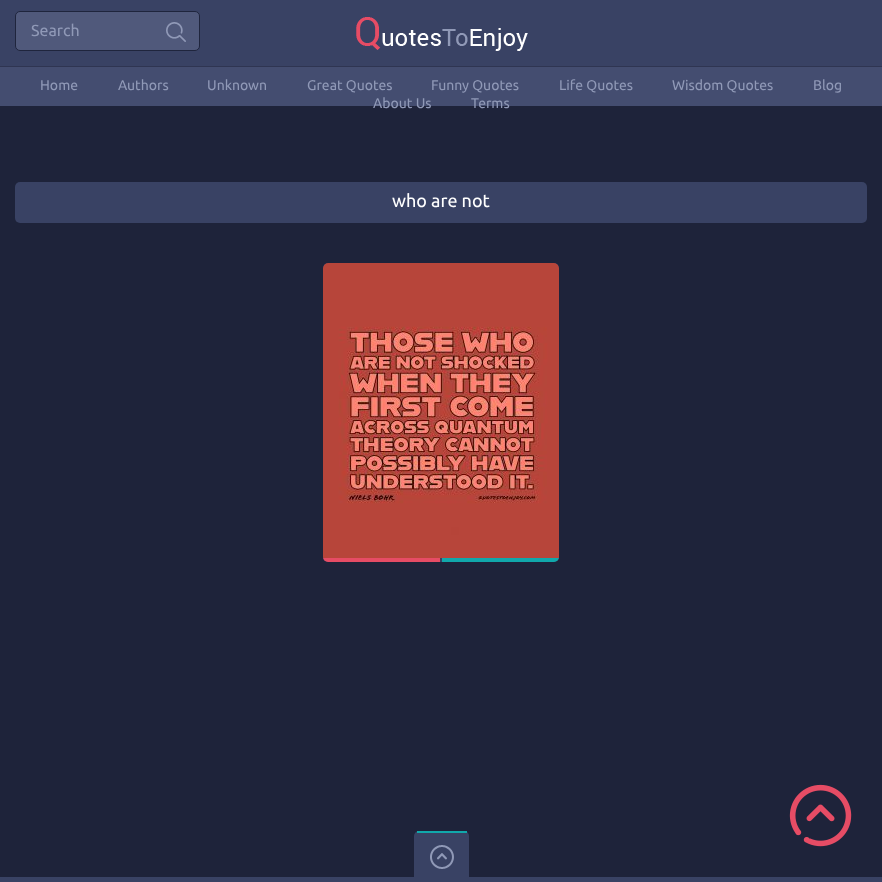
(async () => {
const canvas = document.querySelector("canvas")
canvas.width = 882
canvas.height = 882
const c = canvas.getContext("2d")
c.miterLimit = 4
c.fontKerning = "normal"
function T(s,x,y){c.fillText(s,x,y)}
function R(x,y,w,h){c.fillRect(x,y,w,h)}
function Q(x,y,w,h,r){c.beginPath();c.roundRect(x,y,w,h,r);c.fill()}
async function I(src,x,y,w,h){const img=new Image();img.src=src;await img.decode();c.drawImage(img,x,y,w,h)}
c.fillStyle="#1e233a"
R(0,0,882,882)
c.fillStyle="#394264"
R(0,0,882,66)
c.fillStyle="#50597b"
c.beginPath()
c.roundRect(15.5,11.5,184,39,4.5)
c.fill()
c.strokeStyle="#1f253d"
c.stroke()
c.font="16px Ubuntu"
c.fillStyle="#9099b7"
T("Search",31,36)
await I("1.png",166,22,20,20)
await I("2.png",356,17,172,34)
c.fillStyle="#444d70"
R(0,67,882,39)
c.fillStyle="#2f3552"
R(0,66,882,1)
c.font="14px Ubuntu"
c.fillStyle="#9099b7"
T("Home",40,90)
T("Authors",118,90)
T("Unknown",207,90)
T("Great Quotes",307,90)
T("Funny Quotes",431,90)
T("Life Quotes",559,90)
T("Wisdom Quotes",672,90)
T("Blog",813,90)
T("About Us",373,108)
T("Terms",471,108)
c.fillStyle="#394264"
Q(15,182,852,41,5)
c.font="18px Ubuntu"
c.fillStyle="#fff"
T("who are not",392,207)
c.fillStyle="#394264"
Q(323,263,236,299,5)
await I("3.png",323,263,236,295)
c.save()
c.beginPath()
c.roundRect(323,263,236,299,5)
c.clip()
c.fillStyle="#e64c65"
R(323,558,117,4)
c.fillStyle="#11a8ab"
R(442,558,117,4)
c.restore()
await I("4.png",789,784,63,63)
R(0,877,882,5)
c.beginPath()
c.roundRect(414,831,55,46,[5,5,0,0])
c.fill()
await I("5.png",430,845,24,24)
c.fillStyle="#11a8ab"
R(417,831,50,2)
})()
